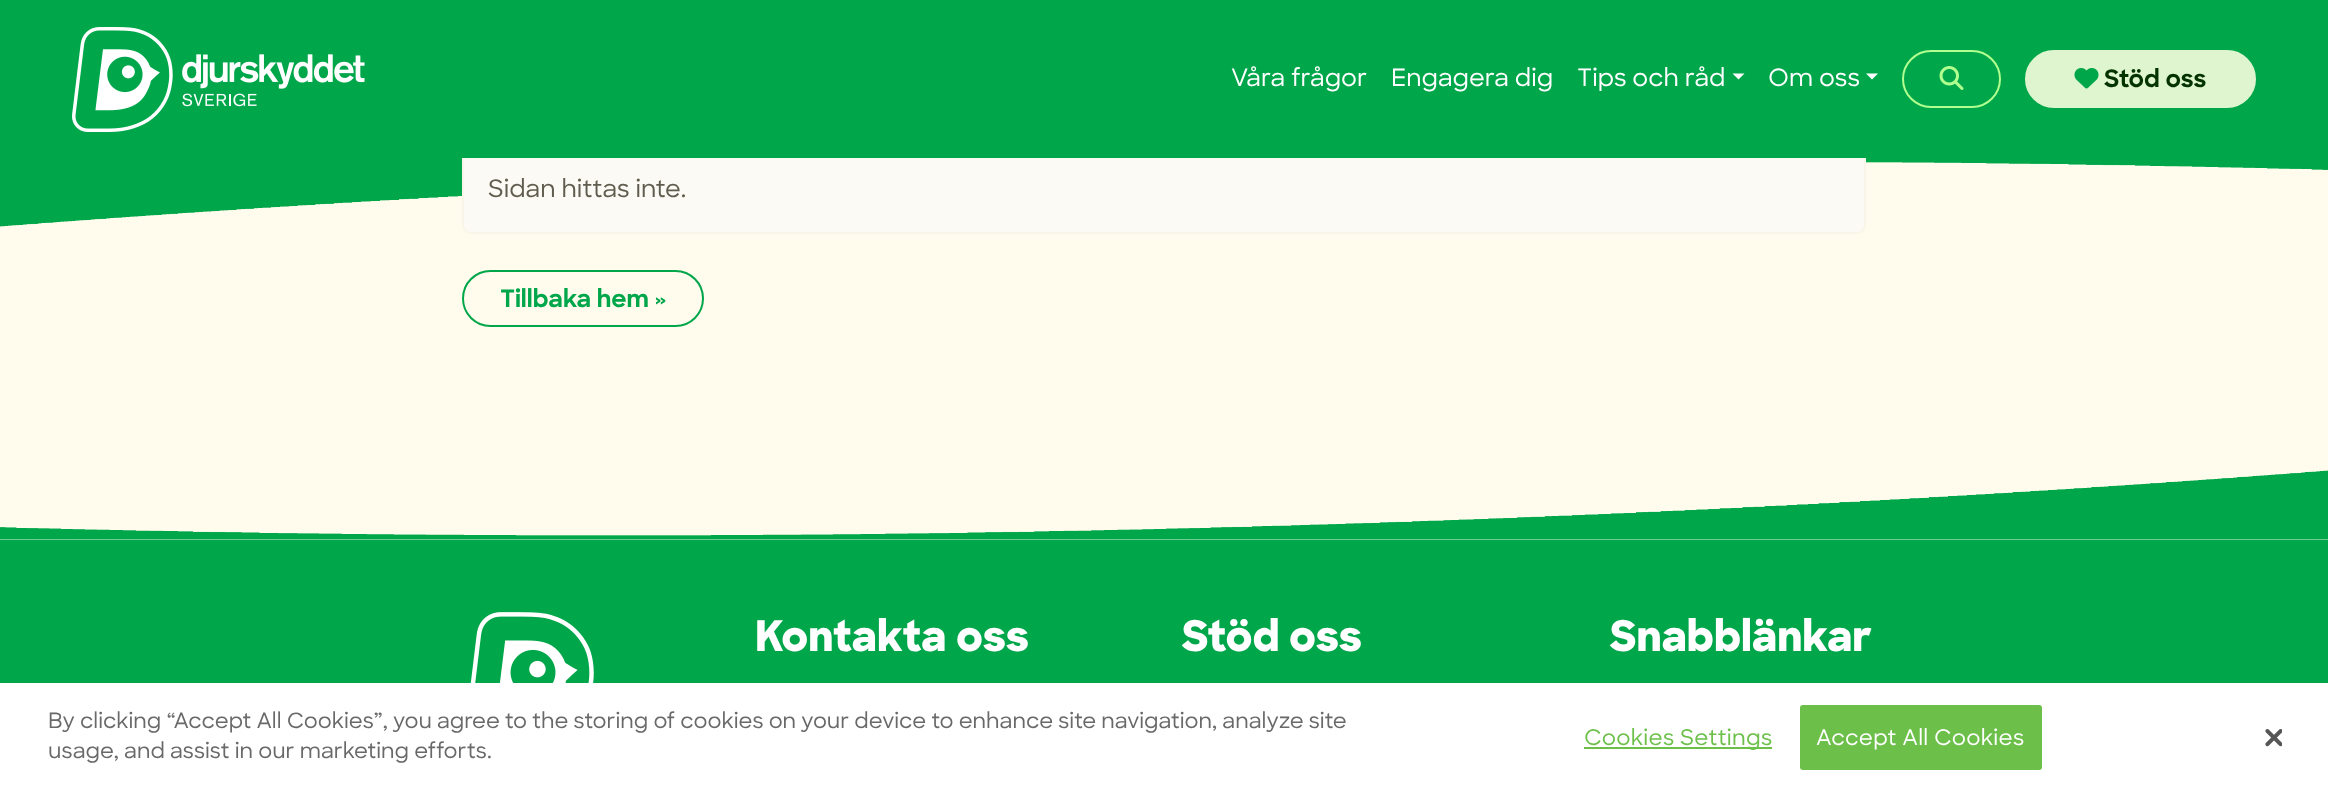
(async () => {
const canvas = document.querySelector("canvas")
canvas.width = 2328
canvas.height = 793
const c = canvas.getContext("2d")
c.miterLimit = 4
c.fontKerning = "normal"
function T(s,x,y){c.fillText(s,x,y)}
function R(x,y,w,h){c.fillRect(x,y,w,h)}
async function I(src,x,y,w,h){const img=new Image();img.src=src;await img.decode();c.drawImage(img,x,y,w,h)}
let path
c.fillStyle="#fffced"
R(0,0,2328,793)
await I("4.png",0,158,2328,69)
c.fillStyle="#fcfaf4"
c.beginPath()
c.roundRect(463,148,1402,85,8)
c.fill()
c.strokeStyle="#f9f6e9"
c.lineWidth=2
c.stroke()
c.fillStyle="#00a64a"
R(0,0,2328,158)
await I("1.png",72,27,293,105)
c.font="500 24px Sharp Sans"
c.fillStyle="#fff"
T("Våra frågor",1231,86)
T("Engagera dig",1391,86)
T("Tips och råd",1577,86)
path = new Path2D("M1732.5 73.5h12l-6 6z")
c.fill(path)
T("Om oss",1768,86)
path = new Path2D("M1866 73.5h12l-6 6z")
c.fill(path)
c.beginPath()
c.roundRect(1903,51,97,56,28)
c.strokeStyle="#b0ff8f"
c.stroke()
await I("2.png",1939,66,25,24)
c.fillStyle="#def5cf"
c.beginPath()
c.roundRect(2026,51,229,56,28)
c.fill()
c.strokeStyle="#def5cf"
c.stroke()
await I("3.png",2074,68,25,21)
c.font="bold 24px Sharp Sans"
c.fillStyle="#053300"
T("Stöd oss",2104,87)
c.font="500 24px Sharp Sans"
c.fillStyle="#605d50"
T("Sidan hittas inte.",488,197)
c.beginPath()
c.roundRect(463,271,240,55,27.5)
c.strokeStyle="#00a64a"
c.stroke()
c.font="bold 24px Sharp Sans"
c.fillStyle="#00a64a"
T("Tillbaka hem »",500,307)
await I("5.png",0,470,2328,70)
R(0,540,2328,143)
await I("6.png",470,612,124,71)
c.font="800 42px Sharp Sans"
c.fillStyle="#fff"
T("Kontakta oss",755,651)
T("Stöd oss",1182,651)
T("Snabblänkar",1610,651)
R(0,683,2328,110)
c.font="500 21.12px Sharp Sans"
c.fillStyle="#696969"
T("By clicking “Accept All Cookies”, you agree to the storing of cookies on your device to enhance site navigation, analyze site",48,728)
T("usage, and assist in our marketing efforts.",48,758)
c.fillStyle="#6cc04a"
R(1584,747,188,2)
c.letterSpacing="0.25px"
c.font="500 21.5px Sharp Sans"
T("Cookies Settings",1584,745)
c.beginPath()
c.roundRect(1801,706,240,63,2)
c.fill()
c.strokeStyle="#6cc04a"
c.stroke()
c.fillStyle="#fff"
T("Accept All Cookies",1816,745)
await I("7.png",2265,729,17,18)
})()
